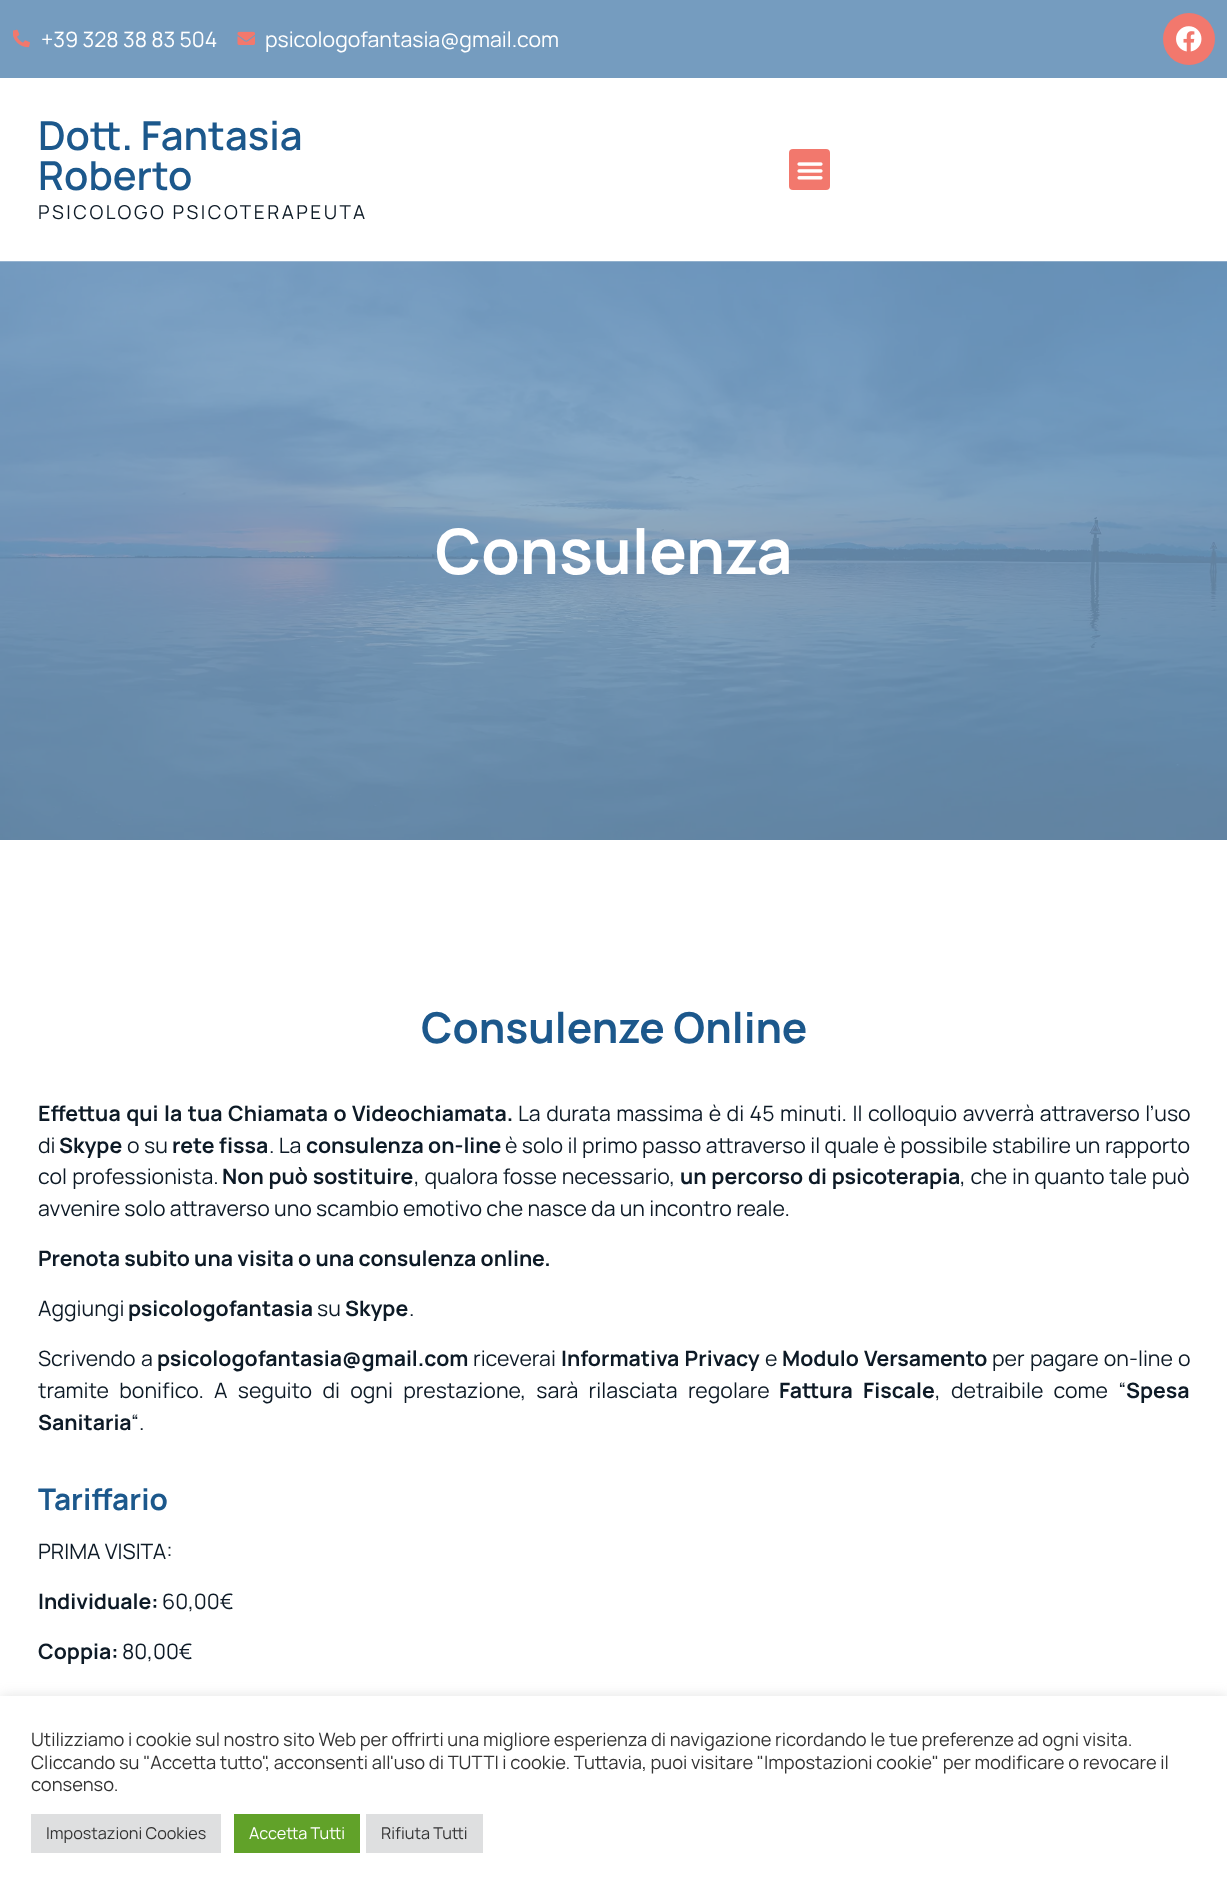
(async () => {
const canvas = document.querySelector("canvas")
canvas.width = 1227
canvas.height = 1889
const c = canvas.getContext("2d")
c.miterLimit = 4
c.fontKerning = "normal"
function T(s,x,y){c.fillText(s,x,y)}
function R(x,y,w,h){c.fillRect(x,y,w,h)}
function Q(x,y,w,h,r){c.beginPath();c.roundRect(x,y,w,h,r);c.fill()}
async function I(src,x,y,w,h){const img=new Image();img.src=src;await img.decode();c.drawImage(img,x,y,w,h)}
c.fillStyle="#fff"
R(0,0,1227,1889)
c.fillStyle="#759cbf"
R(0,0,1227,78)
await I("1.png",13,29,17,19)
c.font="21.25px Manrope"
c.fillStyle="#fff"
T("+39 328 38 83 504",41,47)
await I("2.png",237,31,18,14)
T("psicologofantasia@gmail.com",265,47)
c.fillStyle="#f2786d"
c.beginPath()
c.arc(1189,39,26,0,7)
c.fill()
await I("3.png",1176,26,26,26)
c.font="600 40px Manrope"
c.fillStyle="#1c588c"
T("Dott. Fantasia",38,150)
T("Roberto",38,190)
c.letterSpacing="2.5px"
c.font="19.1px Manrope"
c.fillStyle="#0d1a26"
T("PSICOLOGO PSICOTERAPEUTA",38,219)
c.fillStyle="#f2786d"
Q(789,149,41,41,4)
await I("4.png",797,162,26,18)
await I("5.png",0,261,1227,579)
c.letterSpacing="0px"
c.font="bold 62.5px Manrope"
c.fillStyle="#fff"
T("Consulenza",435,574)
c.font="bold 42.5px Manrope"
c.fillStyle="#1c588c"
T("Consulenze Online",421,1043)
c.wordSpacing="1.25px"
c.font="bold 21.25px Manrope"
c.fillStyle="#0d1a26"
T("Effettua qui la tua Chiamata o Videochiamata.",38,1121)
c.font="21.25px Manrope"
T("La durata massima è di 45 minuti. Il colloquio avverrà attraverso l’uso",518,1121)
c.wordSpacing="0px"
T("di",38,1153)
c.font="bold 21.25px Manrope"
T("Skype",59,1153)
c.wordSpacing="0.2px"
c.font="21.25px Manrope"
T("o su",127,1153)
c.wordSpacing="0px"
c.font="bold 21.25px Manrope"
T("rete fissa",172,1153)
c.font="21.25px Manrope"
T(". La",269,1153)
c.font="bold 21.25px Manrope"
T("consulenza on-line",306,1153)
c.wordSpacing="0.2px"
c.font="21.25px Manrope"
T("è solo il primo passo attraverso il quale è possibile stabilire un rapporto",505,1153)
c.wordSpacing="1px"
T("col professionista.",38,1184)
c.wordSpacing="0.5px"
c.font="bold 21.25px Manrope"
T("Non può sostituire",222,1184)
c.font="21.25px Manrope"
T(", qualora fosse necessario,",414,1184)
c.font="bold 21.25px Manrope"
T("un percorso di psicoterapia",680,1184)
c.font="21.25px Manrope"
T(", che in quanto tale può",960,1184)
c.wordSpacing="0px"
T("avvenire solo attraverso uno scambio emotivo che nasce da un incontro reale.",38,1216)
c.font="bold 21.25px Manrope"
T("Prenota subito una visita o una consulenza online.",38,1266)
c.font="21.25px Manrope"
T("Aggiungi",38,1316)
c.font="bold 21.25px Manrope"
T("psicologofantasia",128,1316)
c.font="21.25px Manrope"
T("su",317,1316)
c.font="bold 21.25px Manrope"
T("Skype",345,1316)
c.font="21.25px Manrope"
T(".",409,1316)
c.wordSpacing="1px"
T("Scrivendo a",38,1366)
c.wordSpacing="0px"
c.font="bold 21.25px Manrope"
T("psicologofantasia@gmail.com",157,1366)
c.font="21.25px Manrope"
T("riceverai",473,1366)
c.wordSpacing="1px"
c.font="bold 21.25px Manrope"
T("Informativa Privacy",561,1366)
c.wordSpacing="0px"
c.font="21.25px Manrope"
T("e",765,1366)
c.wordSpacing="1px"
c.font="bold 21.25px Manrope"
T("Modulo Versamento",782,1366)
c.font="21.25px Manrope"
T("per pagare on-line o",992,1366)
c.wordSpacing="6px"
T("tramite bonifico. A seguito di ogni prestazione, sarà rilasciata regolare",38,1398)
c.font="bold 21.25px Manrope"
T("Fattura Fiscale",779,1398)
c.font="21.25px Manrope"
T(", detraibile come “",935,1398)
c.wordSpacing="0px"
c.font="bold 21.25px Manrope"
T("Spesa",1126,1398)
T("Sanitaria",38,1430)
c.font="21.25px Manrope"
T("“.",131,1430)
c.font="bold 29.75px Manrope"
c.fillStyle="#1c588c"
T("Tariffario",38,1510)
c.font="21.25px Manrope"
c.fillStyle="#0d1a26"
T("PRIMA VISITA:",38,1559)
c.font="bold 21.25px Manrope"
T("Individuale:",38,1609)
c.font="21.25px Manrope"
T("60,00€",162,1609)
c.font="bold 21.25px Manrope"
T("Coppia:",38,1659)
c.font="21.25px Manrope"
T("80,00€",122,1659)
c.fillStyle="#acabab4d"
c.filter="blur(6px)"
c.beginPath()
c.rect(0,1695,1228,194)
c.fill()
c.filter="none"
c.fillStyle="#fff"
R(0,1696,1227,193)
c.font="18.33px Manrope"
c.fillStyle="#333"
T("Utilizziamo i cookie sul nostro sito Web per offrirti una migliore esperienza di navigazione ricordando le tue preferenze ad ogni visita.",31,1746)
T("Cliccando su \"Accetta tutto\", acconsenti all'uso di TUTTI i cookie. Tuttavia, puoi visitare \"Impostazioni cookie\" per modificare o revocare il",31,1769)
T("consenso.",31,1791)
c.fillStyle="#dedfe0"
R(31,1814,190,39)
c.font="16.25px Manrope"
c.fillStyle="#333"
T("Impostazioni Cookies",46,1839)
c.fillStyle="#61a229"
R(234,1814,126,39)
c.fillStyle="#fff"
T("Accetta Tutti",249,1839)
c.fillStyle="#dedfe0"
R(366,1814,117,39)
c.fillStyle="#333"
T("Rifiuta Tutti",381,1839)
})()
